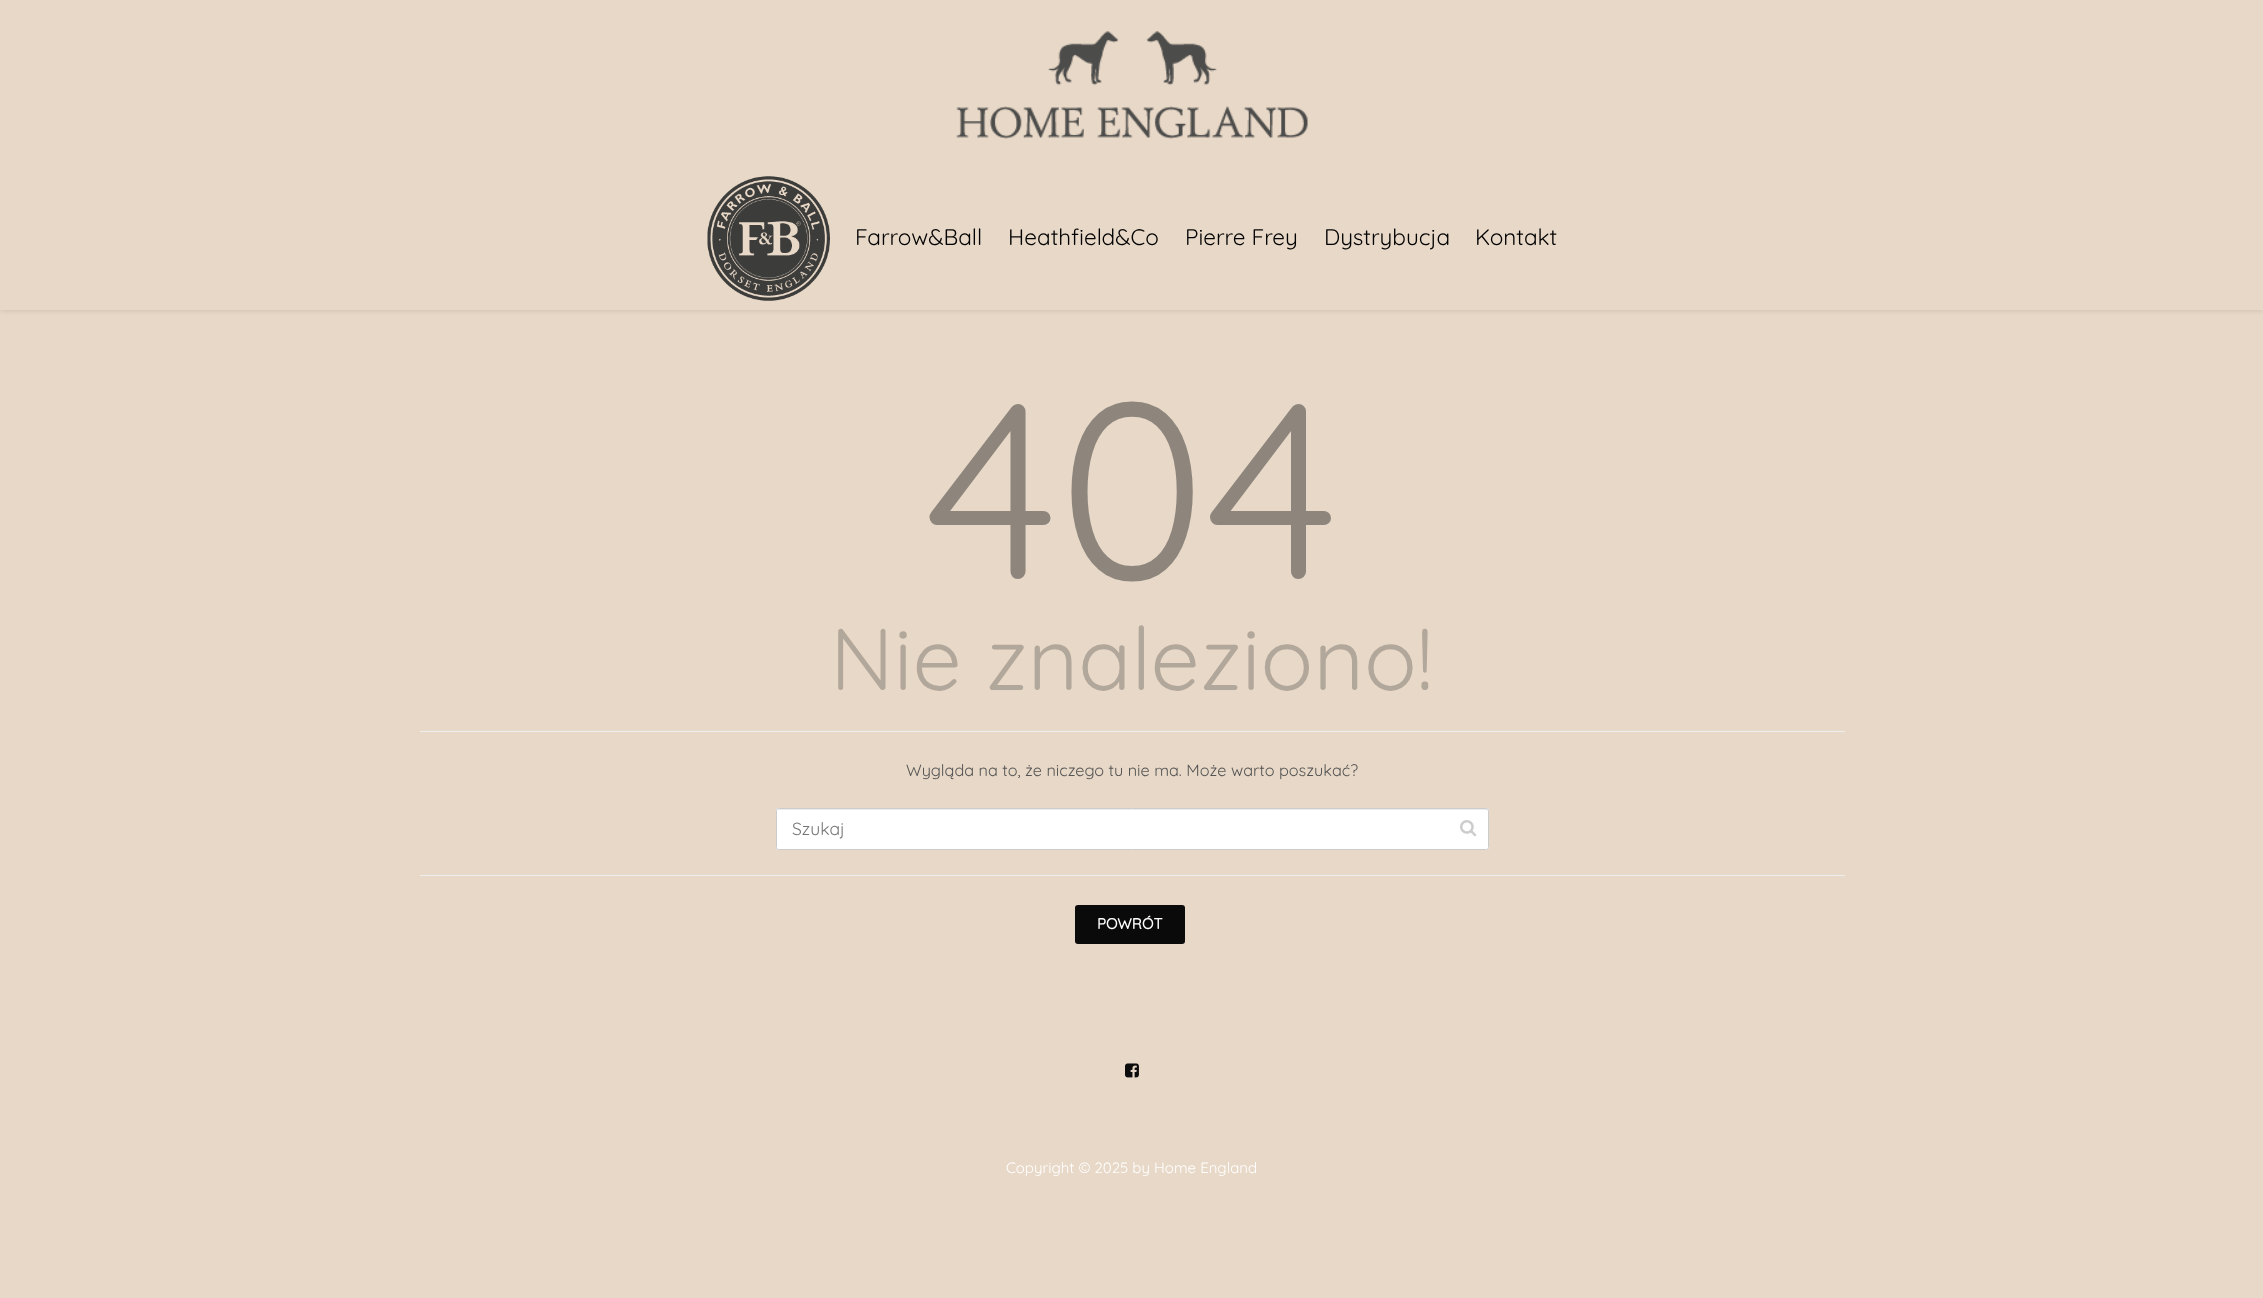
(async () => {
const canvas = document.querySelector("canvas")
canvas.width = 2263
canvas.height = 1298
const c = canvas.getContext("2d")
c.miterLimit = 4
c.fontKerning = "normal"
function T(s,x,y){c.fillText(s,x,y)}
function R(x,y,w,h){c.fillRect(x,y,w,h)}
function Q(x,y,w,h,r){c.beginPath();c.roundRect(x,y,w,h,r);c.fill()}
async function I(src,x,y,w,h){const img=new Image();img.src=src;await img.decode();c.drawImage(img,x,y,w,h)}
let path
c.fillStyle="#e8d8c7"
R(0,0,2263,1298)
await I("1.png",956,31,352,108)
await I("2.png",707,176,123,125)
c.font="300 22.5px Quicksand"
c.fillStyle="#000"
T("Farrow&Ball",855,245)
T("Heathfield&Co",1008,245)
T("Pierre Frey",1185,245)
T("Dystrybucja",1324,245)
T("Kontakt",1475,245)
c.save()
c.beginPath()
c.rect(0,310,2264,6)
c.clip()
c.fillStyle="#0000001a"
c.filter="blur(2.5px)"
c.beginPath()
c.roundRect(0,305,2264,6,3)
c.fill()
c.filter="none"
c.restore()
c.font="300 250px Quicksand"
c.fillStyle="#8e867d"
T("404",926,579)
c.font="300 87.5px Quicksand"
c.fillStyle="#b2a79b"
T("Nie znaleziono!",830,690)
c.fillStyle="#eee"
R(420,731,1425,1)
c.font="300 16.25px Quicksand"
c.fillStyle="#555"
T("Wygląda na to, że niczego tu nie ma. Może warto poszukać?",906,776)
c.fillStyle="#fff"
Q(776,808,713,42,2.5)
c.fillStyle="#ececec"
path = new Path2D("M779 810h707l2 1c0-1 0-2-1-2h-708c-1 0-1 1-1 2z")
c.fill(path)
c.beginPath()
c.roundRect(776.5,808.5,712,41,2)
c.strokeStyle="#ccc"
c.stroke()
c.font="300 17.5px Quicksand"
c.fillStyle="#757575"
T("Szukaj",792,835)
await I("3.png",1460,820,17,17)
c.fillStyle="#eee"
R(420,875,1425,1)
c.fillStyle="#0a0a0a"
Q(1075,905,110,39,3)
c.font="bold 15px Quicksand"
c.fillStyle="#fff"
T("POWRÓT",1097,929)
await I("4.png",1125,1063,14,15)
c.font="300 15px Quicksand"
T("Copyright © 2025 by Home England",1006,1173)
})()
